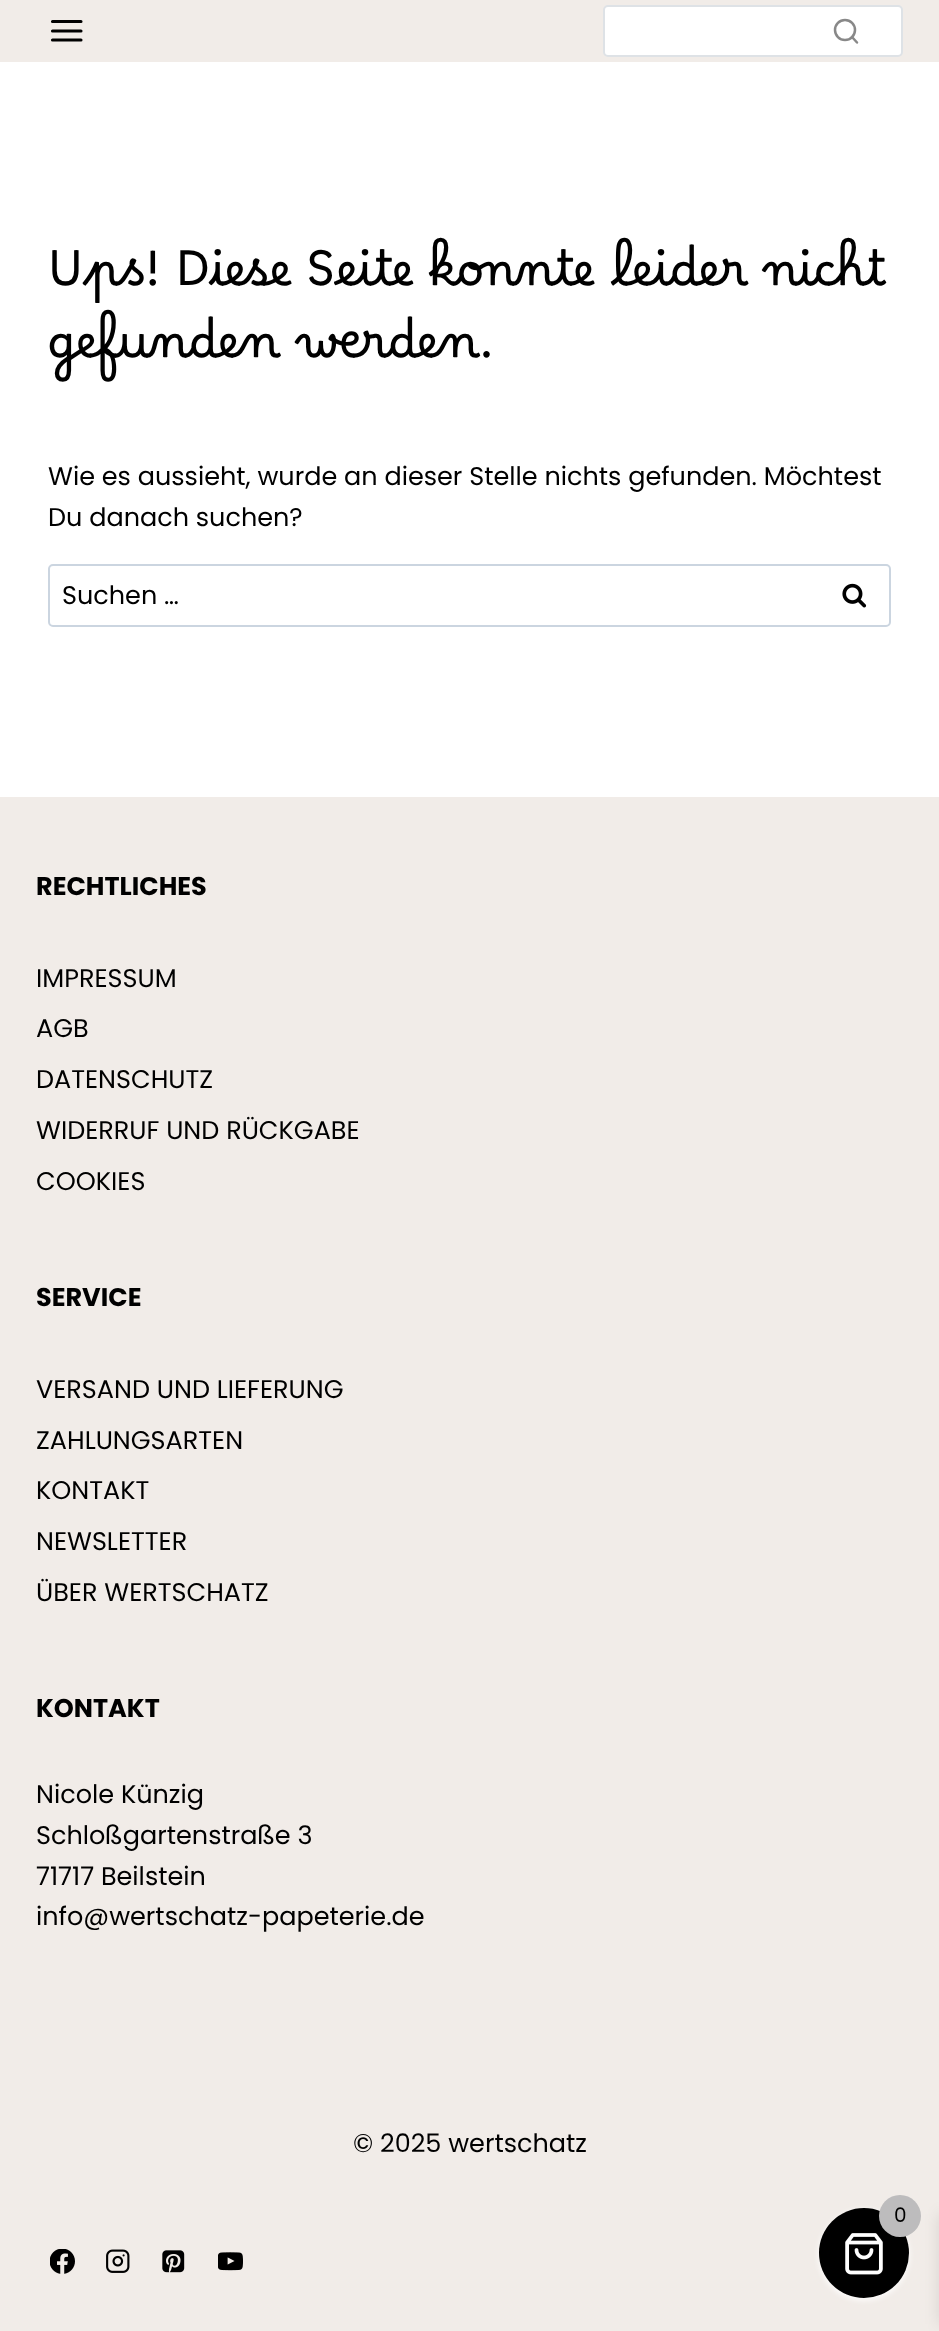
(async () => {
const canvas = document.querySelector("canvas")
canvas.width = 939
canvas.height = 2331
const c = canvas.getContext("2d")
c.miterLimit = 4
c.fontKerning = "normal"
function T(s,x,y){c.fillText(s,x,y)}
function R(x,y,w,h){c.fillRect(x,y,w,h)}
async function I(src,x,y,w,h){const img=new Image();img.src=src;await img.decode();c.drawImage(img,x,y,w,h)}
let path
c.fillStyle="#fff"
R(0,0,939,2331)
c.fillStyle="#f1ece8"
R(0,0,939,62)
path = new Path2D("M52.5 31h28.5m-28.5-9.5h28.5m-28.5 18.5h28.5")
c.strokeStyle="#000"
c.lineWidth=3.1
c.lineCap="round"
c.lineJoin="round"
c.stroke(path)
c.fillStyle="#fff"
c.beginPath()
c.roundRect(604,6,298,50,4)
c.fill()
c.strokeStyle="#dee2e6"
c.lineWidth=2
c.lineJoin="miter"
c.stroke()
c.beginPath()
c.arc(845,30,10,0,7)
c.strokeStyle="#888"
c.lineWidth=2.5
c.stroke()
path = new Path2D("M857 42.5l-5-5.5")
c.lineJoin="round"
c.stroke(path)
c.font="48px Borel"
c.fillStyle="#000"
T("Ups! Diese Seite konnte leider nicht",48,285)
T("gefunden werden.",48,357)
c.font="25.5px Poppins"
T("Wie es aussieht, wurde an dieser Stelle nichts gefunden. Möchtest",48,485)
T("Du danach suchen?",48,526)
c.beginPath()
c.roundRect(49,565,841,61,4)
c.strokeStyle="#cbd5e0"
c.lineWidth=2
c.lineJoin="miter"
c.stroke()
T("Suchen …",62,604)
await I("1.png",842,583,25,25)
c.fillStyle="#f1ece8"
R(0,797,939,1534)
c.font="bold 25.5px Poppins"
c.fillStyle="#000"
T("RECHTLICHES",36,895)
c.font="25.5px Poppins"
T("IMPRESSUM",36,987)
T("AGB",36,1037)
T("DATENSCHUTZ",36,1088)
T("WIDERRUF UND RÜCKGABE",36,1139)
T("COOKIES",36,1190)
c.font="bold 25.5px Poppins"
T("SERVICE",36,1306)
c.font="25.5px Poppins"
T("VERSAND UND LIEFERUNG",36,1398)
T("ZAHLUNGSARTEN",36,1449)
T("KONTAKT",36,1499)
T("NEWSLETTER",36,1550)
T("ÜBER WERTSCHATZ",36,1601)
c.font="bold 25.5px Poppins"
T("KONTAKT",36,1717)
c.font="25.5px Poppins"
T("Nicole Künzig",36,1803)
T("Schloßgartenstraße 3",36,1844)
T("71717 Beilstein",36,1885)
T("info@wertschatz-papeterie.de",36,1925)
T("© 2025 wertschatz",353,2152)
await I("2.png",50,2249,25,25)
await I("3.png",106,2249,24,24)
await I("4.png",162,2250,23,23)
await I("5.png",218,2252,25,19)
c.fillStyle="#fff"
c.filter="blur(3px)"
c.beginPath()
c.roundRect(819,2210,90,90,45)
c.fill()
c.filter="none"
c.fillStyle="#000"
c.beginPath()
c.arc(864,2253,45,0,7)
c.fill()
await I("6.png",845,2233,38,42)
c.fillStyle="#0000001a"
c.filter="blur(7.5px)"
c.beginPath()
c.rect(939,2214,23,110)
c.fill()
c.filter="none"
c.fillStyle="#bdbcbd"
c.beginPath()
c.arc(900,2216,21,0,7)
c.fill()
c.font="20px Poppins"
c.fillStyle="#000"
T("0",894,2222)
})()
